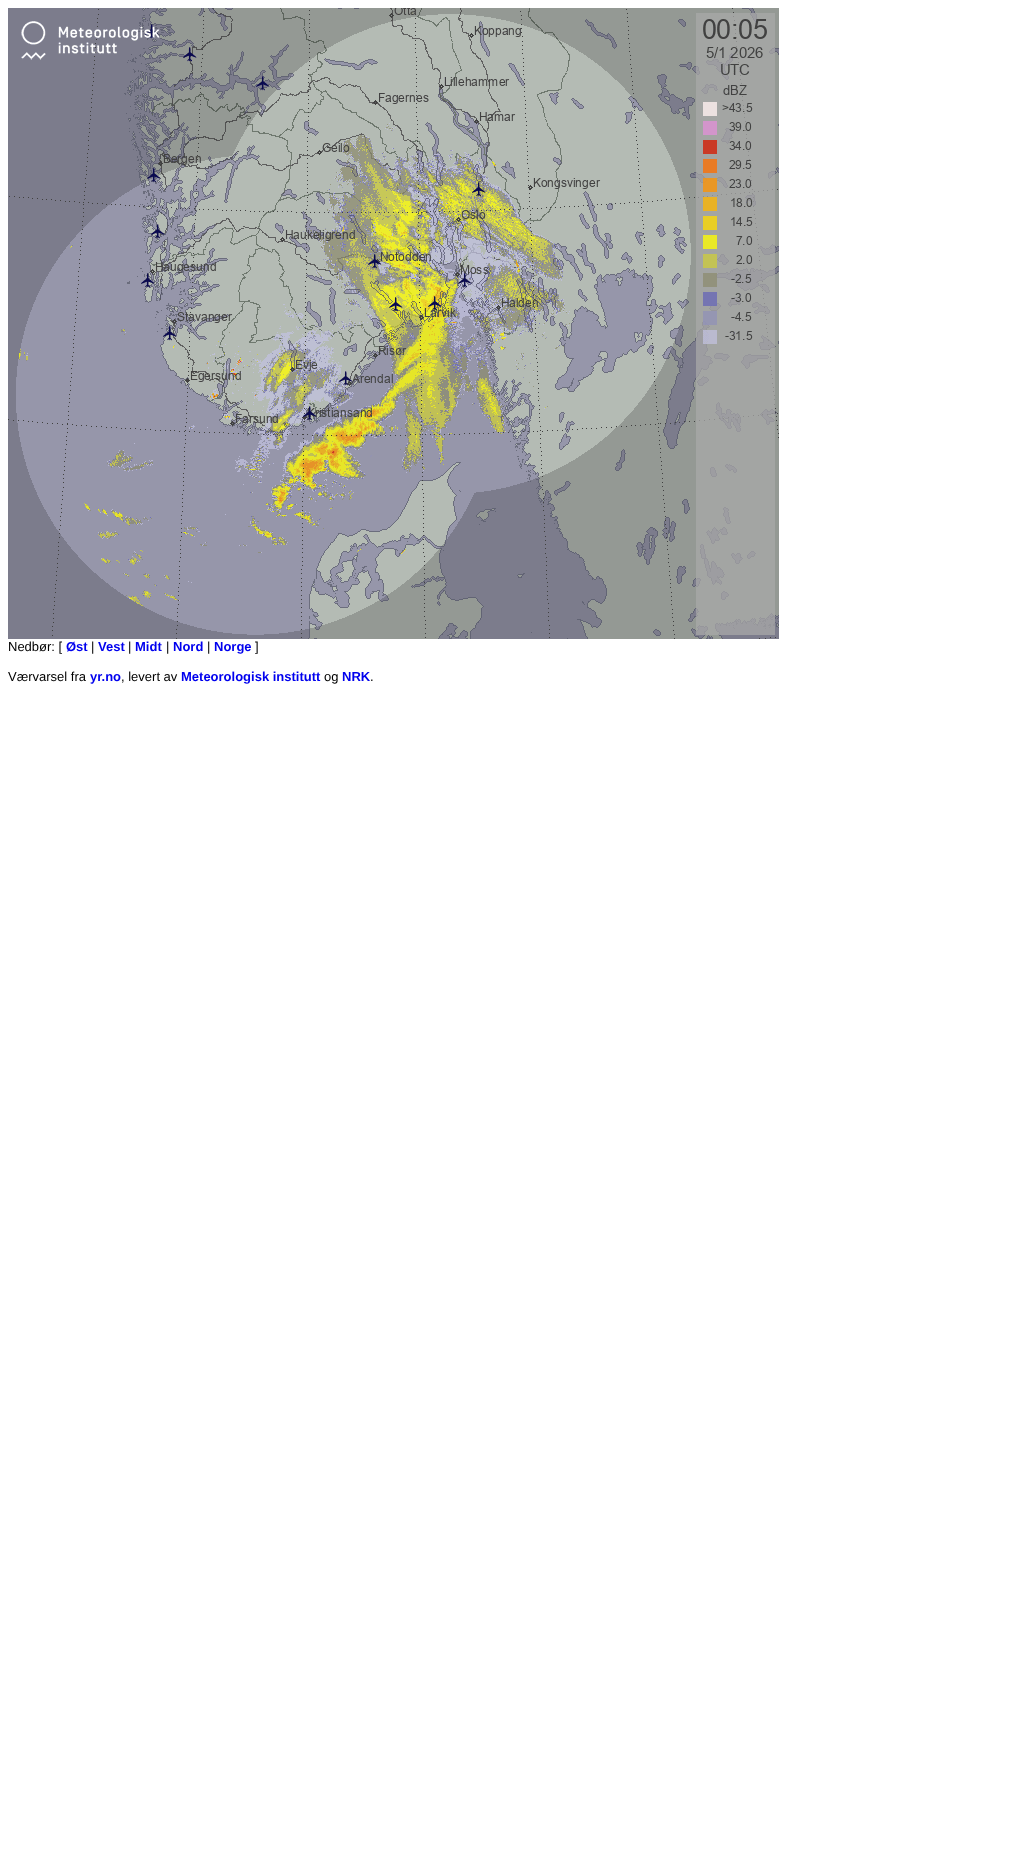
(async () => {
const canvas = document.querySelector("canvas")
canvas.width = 1029
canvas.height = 1876
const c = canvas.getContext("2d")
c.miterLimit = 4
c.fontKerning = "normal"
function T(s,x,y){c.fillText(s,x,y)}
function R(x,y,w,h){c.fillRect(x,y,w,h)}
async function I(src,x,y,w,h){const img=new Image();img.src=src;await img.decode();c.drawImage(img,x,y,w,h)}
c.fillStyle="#fff"
R(0,0,1029,1876)
await I("1.png",8,8,771,631)
c.font="13px Liberation Sans"
c.fillStyle="#000"
T("Nedbør: [",8,651)
c.font="bold 13px Liberation Sans"
c.fillStyle="#00e"
T("Øst",66,651)
c.font="13px Liberation Sans"
c.fillStyle="#000"
T("|",91,651)
c.font="bold 13px Liberation Sans"
c.fillStyle="#00e"
T("Vest",98,651)
c.font="13px Liberation Sans"
c.fillStyle="#000"
T("|",128,651)
c.font="bold 13px Liberation Sans"
c.fillStyle="#00e"
T("Midt",135,651)
c.font="13px Liberation Sans"
c.fillStyle="#000"
T("|",166,651)
c.font="bold 13px Liberation Sans"
c.fillStyle="#00e"
T("Nord",173,651)
c.font="13px Liberation Sans"
c.fillStyle="#000"
T("|",207,651)
c.font="bold 13px Liberation Sans"
c.fillStyle="#00e"
T("Norge",214,651)
c.font="13px Liberation Sans"
c.fillStyle="#000"
T("]",255,651)
T("Værvarsel fra",8,681)
c.font="bold 13px Liberation Sans"
c.fillStyle="#00e"
T("yr.no",90,681)
c.font="13px Liberation Sans"
c.fillStyle="#000"
T(", levert av",121,681)
c.font="bold 13px Liberation Sans"
c.fillStyle="#00e"
T("Meteorologisk institutt",181,681)
c.font="13px Liberation Sans"
c.fillStyle="#000"
T("og",324,681)
c.font="bold 13px Liberation Sans"
c.fillStyle="#00e"
T("NRK",342,681)
c.font="13px Liberation Sans"
c.fillStyle="#000"
T(".",370,681)
})()
